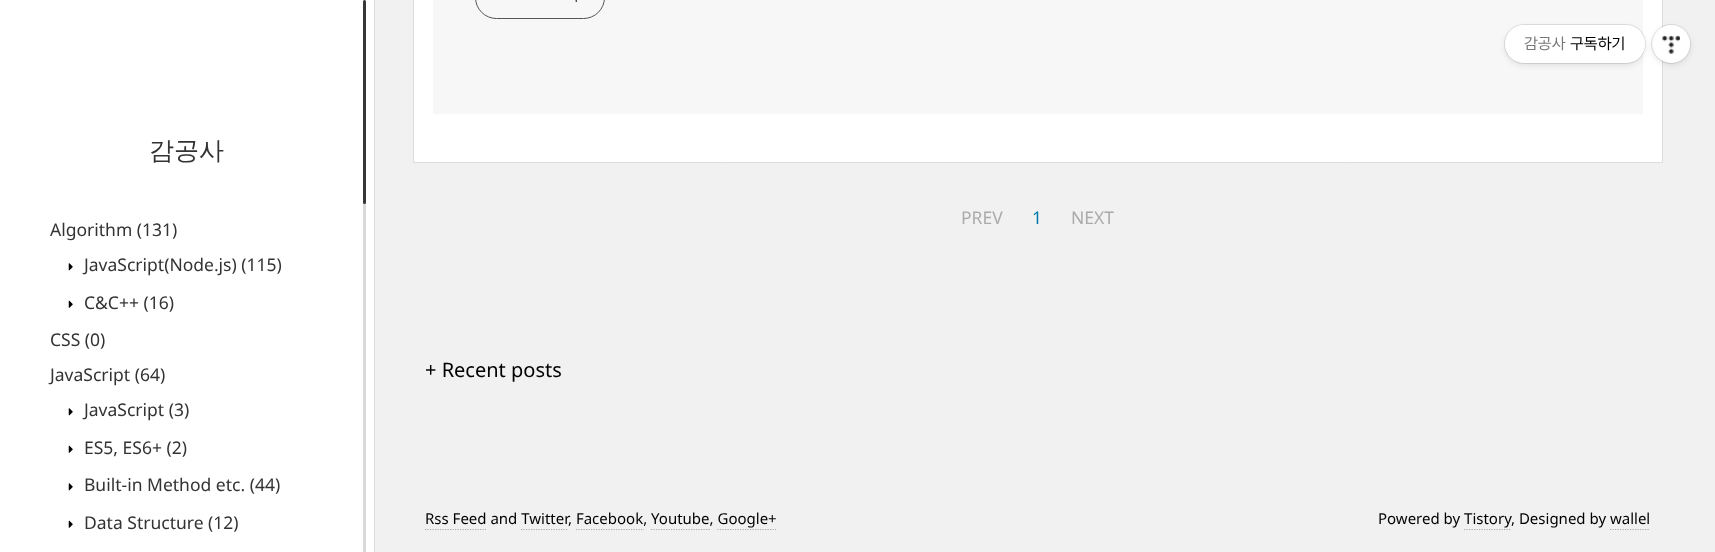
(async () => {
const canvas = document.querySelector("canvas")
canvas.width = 1715
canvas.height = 552
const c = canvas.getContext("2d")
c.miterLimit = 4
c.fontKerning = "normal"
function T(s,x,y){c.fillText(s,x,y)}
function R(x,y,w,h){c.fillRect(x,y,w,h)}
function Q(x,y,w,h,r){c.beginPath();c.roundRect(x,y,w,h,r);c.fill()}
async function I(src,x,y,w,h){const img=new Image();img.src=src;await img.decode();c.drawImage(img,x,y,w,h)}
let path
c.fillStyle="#f1f1f1"
R(0,0,1715,552)
c.fillStyle="#fff"
c.beginPath()
c.rect(413.5,-.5,1249,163)
c.fill()
c.strokeStyle="#ddd"
c.stroke()
c.fillStyle="#0000001a"
c.filter="blur(3px)"
c.beginPath()
c.roundRect(1653,28,37,37,18.5)
c.fill()
c.filter="none"
c.beginPath()
c.arc(1671,44,19.5,0,7)
c.strokeStyle="#0000001a"
c.stroke()
c.fillStyle="#fff"
Q(1653,25,37,38,18.5)
c.fillStyle="#f7f7f7"
R(433,0,1210,114)
c.fillStyle="#0000001a"
c.filter="blur(3px)"
c.beginPath()
c.roundRect(1505,28,140,37,18.5)
c.fill()
c.filter="none"
c.beginPath()
c.roundRect(1504.5,24.5,141,39,19.5)
c.stroke()
c.fillStyle="#fff"
Q(1505,25,140,38,19)
c.font="16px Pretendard"
c.fillStyle="#777"
T("감공사",1524,49)
c.fillStyle="#000"
T("구독하기",1570,49)
await I("1.png",1662,35,18,19)
c.fillStyle="#fff"
R(0,0,374,552)
c.fillStyle="#ddd"
R(374,0,1,552)
c.font="500 25px WenQuanYi Zen Hei"
c.fillStyle="#333"
T("감공사",149,159)
c.font="17.5px Noto Sans"
T("Algorithm (131)",50,236)
await I("2.png",68,263,5,8)
T("JavaScript(Node.js) (115)",84,271)
await I("3.png",68,300,5,8)
T("C&C++ (16)",84,309)
T("CSS (0)",50,346)
T("JavaScript (64)",50,381)
await I("2.png",68,408,5,8)
T("JavaScript (3)",84,416)
await I("3.png",68,445,5,8)
T("ES5, ES6+ (2)",84,454)
await I("2.png",68,483,5,8)
T("Built-in Method etc. (44)",84,491)
await I("3.png",68,520,5,8)
T("Data Structure (12)",84,529)
c.fillStyle="#d9d9d9"
Q(363,0,3,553,1.5)
c.fillStyle="#000000bf"
Q(363,0,3,204,1.5)
c.beginPath()
c.roundRect(475.5,-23.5,129,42,22)
c.strokeStyle="#555"
c.stroke()
await I("4.png",575,0,2,2)
c.fillStyle="#aaa"
T("PREV",961,224)
c.fillStyle="#07a"
T("1",1032,224)
c.fillStyle="#aaa"
T("NEXT",1071,224)
c.font="20px Noto Sans"
c.fillStyle="#000"
T("+ Recent posts",425,377)
c.font="15px Noto Sans"
T("Rss Feed and Twitter",425,524)
path = new Path2D("M425 529.5h61")
c.strokeStyle="#aaa"
c.lineWidth=1.2
c.setLineDash([1.25,1.25])
c.stroke(path)
T(", Facebook, Youtube, Google+",568,524)
path = new Path2D("M521 529.5h46.5")
c.stroke(path)
path = new Path2D("M576 529.5h68")
c.stroke(path)
path = new Path2D("M651 529.5h59")
c.stroke(path)
path = new Path2D("M717.5 529.5h58.5")
c.stroke(path)
T("Powered by Tistory",1378,524)
T(", Designed by wallel",1511,524)
path = new Path2D("M1464 529.5h47")
c.stroke(path)
path = new Path2D("M1610 529.5h40")
c.stroke(path)
})()
